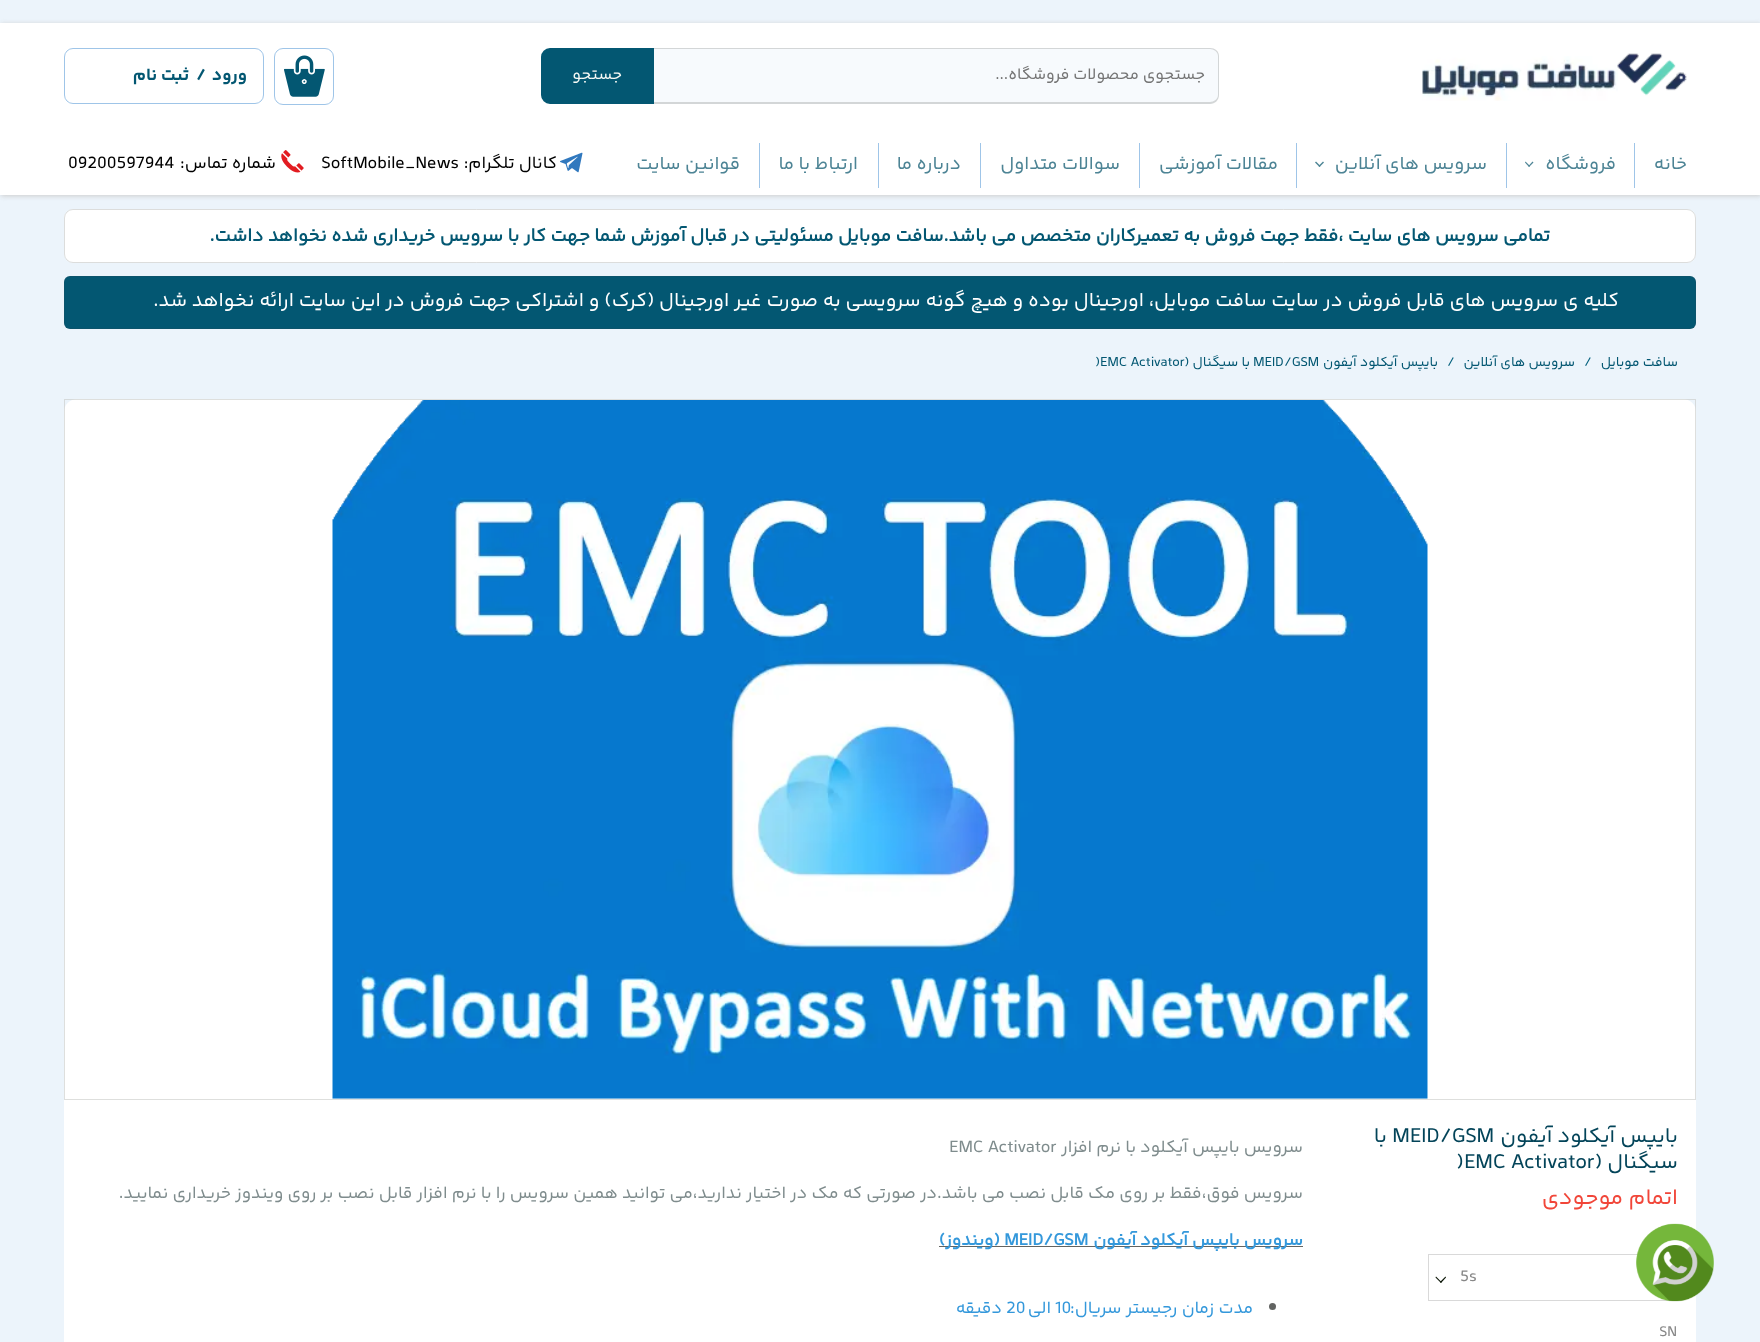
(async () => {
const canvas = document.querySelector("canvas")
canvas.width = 1760
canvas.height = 1342
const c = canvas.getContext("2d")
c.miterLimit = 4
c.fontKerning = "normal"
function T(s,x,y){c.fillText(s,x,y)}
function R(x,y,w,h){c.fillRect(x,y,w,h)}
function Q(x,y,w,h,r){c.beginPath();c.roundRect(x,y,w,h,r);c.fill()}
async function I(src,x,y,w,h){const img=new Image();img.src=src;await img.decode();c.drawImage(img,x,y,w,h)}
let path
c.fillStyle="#ecf4fb"
R(0,0,1760,1342)
c.fillStyle="#ccc"
c.filter="blur(2.5px)"
c.beginPath()
c.rect(1,24,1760,172)
c.fill()
c.filter="none"
c.fillStyle="#fff"
R(0,23,1760,172)
await I("2.png",1422,56,196,45)
await I("1.png",1617,53,70,43)
c.fillStyle="#f7fafd"
c.beginPath()
c.roundRect(654,48,565,56,[0,9,9,0])
c.fill()
c.fillStyle="#9495935c"
path = new Path2D("M654 48h556c5 0 9 3 9 8v39c0 5-4 9-9 9h-556zm0 1h556c4 0 8 3 8 7v39c0 4-4 7-8 7h-556z")
c.fill(path,"evenodd")
c.direction="rtl"
c.font="16.25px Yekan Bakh"
c.fillStyle="#757575"
T("جستجوی محصولات فروشگاه...",1205,79)
c.fillStyle="#035772"
c.beginPath()
c.roundRect(543,50,109,52,[7,0,0,7])
c.fill()
c.strokeStyle="#035772"
c.lineWidth=4
c.stroke()
c.fillStyle="#f6f9f5"
T("جستجو",622,79)
c.beginPath()
c.roundRect(274.5,48.5,59,56,8.5)
c.strokeStyle="#9fc5e8"
c.lineWidth=1
c.stroke()
await I("3.png",284,55,41,42)
c.direction="ltr"
c.font="bold 12px Yekan Bakh"
c.fillStyle="#fff"
T("۰",301,85)
c.beginPath()
c.roundRect(64.5,48.5,199,55,8.5)
c.stroke()
c.direction="rtl"
c.font="bold 17.5px Yekan Bakh"
c.fillStyle="#035772"
T("ورود",247,80)
c.direction="ltr"
T("/",196,80)
c.direction="rtl"
T("ثبت نام",189,80)
c.font="18.75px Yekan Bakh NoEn"
c.fillStyle="#4d8495"
T("خانه",1687,169)
c.fillStyle="#9fc5e8"
R(1634,143,1,45)
c.fillStyle="#4d8495"
T("فروشگاه",1616,169)
path = new Path2D("M1532.5 161.5l1 1l-4.5 4.5l-.5-1z")
c.fill(path)
path = new Path2D("M1525.5 161.5l4.5 4.5l-1 1l-4-4.5z")
c.fill(path)
c.fillStyle="#9fc5e8"
R(1506,143,1,45)
c.fillStyle="#4d8495"
T("سرویس های آنلاین",1487,169)
path = new Path2D("M1323 161.5l1 1l-4.5 4.5l-1-1z")
c.fill(path)
path = new Path2D("M1316 161.5l4.5 4.5l-1 1l-4.5-4.5z")
c.fill(path)
c.fillStyle="#9fc5e8"
R(1296,143,1,45)
c.fillStyle="#4d8495"
T("مقالات آموزشی",1278,169)
c.fillStyle="#9fc5e8"
R(1139,143,1,45)
c.fillStyle="#4d8495"
T("سوالات متداول",1120,169)
c.fillStyle="#9fc5e8"
R(980,143,1,45)
c.fillStyle="#4d8495"
T("درباره ما",961,169)
c.fillStyle="#9fc5e8"
R(878,143,1,45)
c.fillStyle="#4d8495"
T("ارتباط با ما",858,169)
c.fillStyle="#9fc5e8"
R(759,143,1,45)
c.fillStyle="#4d8495"
T("قوانین سایت",740,169)
await I("4.png",560,152,23,21)
c.font="17.5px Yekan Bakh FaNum"
c.fillStyle="#000"
T("کانال تلگرام:",557,168)
c.direction="ltr"
T("SoftMobile_News",321,168)
await I("5.png",281,150,23,23)
c.direction="rtl"
T("شماره تماس:",276,168)
c.direction="ltr"
T("09200597944",68,168)
c.fillStyle="#fff"
Q(64,209,1632,54,9)
c.beginPath()
c.roundRect(64.5,209.5,1631,53,8.5)
c.strokeStyle="#c5c7c499"
c.stroke()
c.direction="rtl"
c.font="bold 18.75px Yekan Bakh FaNum"
c.fillStyle="#035772"
T("تمامی سرویس های سایت ،فقط جهت فروش به تعمیرکاران متخصص می باشد.سافت موبایل مسئولیتی در قبال آموزش شما جهت کار با سرویس خریداری شده نخواهد داشت.",1550,241)
Q(64,276,1632,53,6)
c.beginPath()
c.roundRect(64.5,276.5,1631,52,5.5)
c.strokeStyle="#5c3c3e1c"
c.stroke()
c.font="20px Yekan Bakh"
c.fillStyle="#fff"
T("کلیه ی سرویس های قابل فروش در سایت سافت موبایل، اورجینال بوده و هیچ گونه سرویسی به صورت غیر اورجینال (کرک) و اشتراکی جهت فروش در این سایت ارائه نخواهد شد.",1619,306)
c.font="13.75px Yekan Bakh"
c.fillStyle="#035772"
T("سافت موبایل",1678,366)
c.direction="ltr"
c.fillStyle="#03607d"
T("/",1584,366)
c.direction="rtl"
c.fillStyle="#035772"
T("سرویس های آنلاین",1575,366)
c.direction="ltr"
c.fillStyle="#03607d"
T("/",1447,366)
c.direction="rtl"
c.fillStyle="#035772"
T("بایپس آیکلود آیفون",1438,366)
c.direction="ltr"
T("MEID/GSM",1253,366)
c.direction="rtl"
T("با سیگنال (",1250,366)
c.direction="ltr"
T(")EMC Activator",1095,366)
c.fillStyle="#fff"
Q(64,399,1632,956,13)
c.strokeStyle="#c5c7c491"
c.strokeRect(64.5,399.5,1631,700)
await I("6.png",332,400,1096,699)
c.direction="rtl"
c.font="21.25px Yekan Bakh"
c.fillStyle="#034459"
T("بایپس آیکلود آیفون",1678,1142)
c.direction="ltr"
T("MEID/GSM",1392,1142)
c.direction="rtl"
T("با",1387,1142)
T("سیگنال (",1678,1168)
c.direction="ltr"
T(")EMC Activator",1456,1168)
c.direction="rtl"
c.font="22.5px Yekan Bakh"
c.fillStyle="#f14639"
T("اتمام موجودی",1678,1204)
c.strokeStyle="#d9d9d9"
c.strokeRect(1428.5,1254.5,249,46)
c.direction="ltr"
c.font="16.25px Yekan Bakh"
c.fillStyle="#878787"
T("5s",1460,1281)
c.fillStyle="#091405"
path = new Path2D("M1445.5 1276.5l.5 1l-5 5.5l-1-1z")
c.fill(path)
path = new Path2D("M1436 1276.5l5.5 5.5l-.5 1l-5.5-5.5z")
c.fill(path)
c.font="15px Yekan Bakh"
c.fillStyle="#878787"
T("SN",1659,1336)
c.direction="rtl"
c.font="17.5px Yekan Bakh FaNum"
c.fillStyle="#7f8c8d"
T("سرویس بایپس آیکلود با نرم افزار",1303,1152)
c.direction="ltr"
T("EMC Activator",949,1152)
c.direction="rtl"
T("سرویس فوق،فقط بر روی مک قابل نصب می باشد.در صورتی که مک در اختیار ندارید،می توانید همین سرویس را با نرم افزار قابل نصب بر روی ویندوز خریداری نمایید.",1303,1198)
c.fillStyle="#626462"
R(939,1246,364,1)
c.font="bold 17.5px Yekan Bakh FaNum"
c.fillStyle="#3498db"
T("سرویس بایپس آیکلود آیفون",1303,1245)
c.direction="ltr"
T("MEID/GSM",1004,1245)
c.direction="rtl"
T("(ویندوز)",1000,1245)
c.fillStyle="#626462"
c.beginPath()
c.arc(1272.5,1306.5,3.5,0,7)
c.fill()
c.font="17.5px Yekan Bakh FaNum"
c.fillStyle="#3498db"
T("مدت زمان رجیستر سریال:",1253,1313)
c.direction="ltr"
T("10",1055,1313)
c.direction="rtl"
T("الی",1051,1313)
c.direction="ltr"
T("20",1006,1313)
c.direction="rtl"
T("دقیقه",1002,1313)
await I("7.png",1636,1223,78,79)
})()
